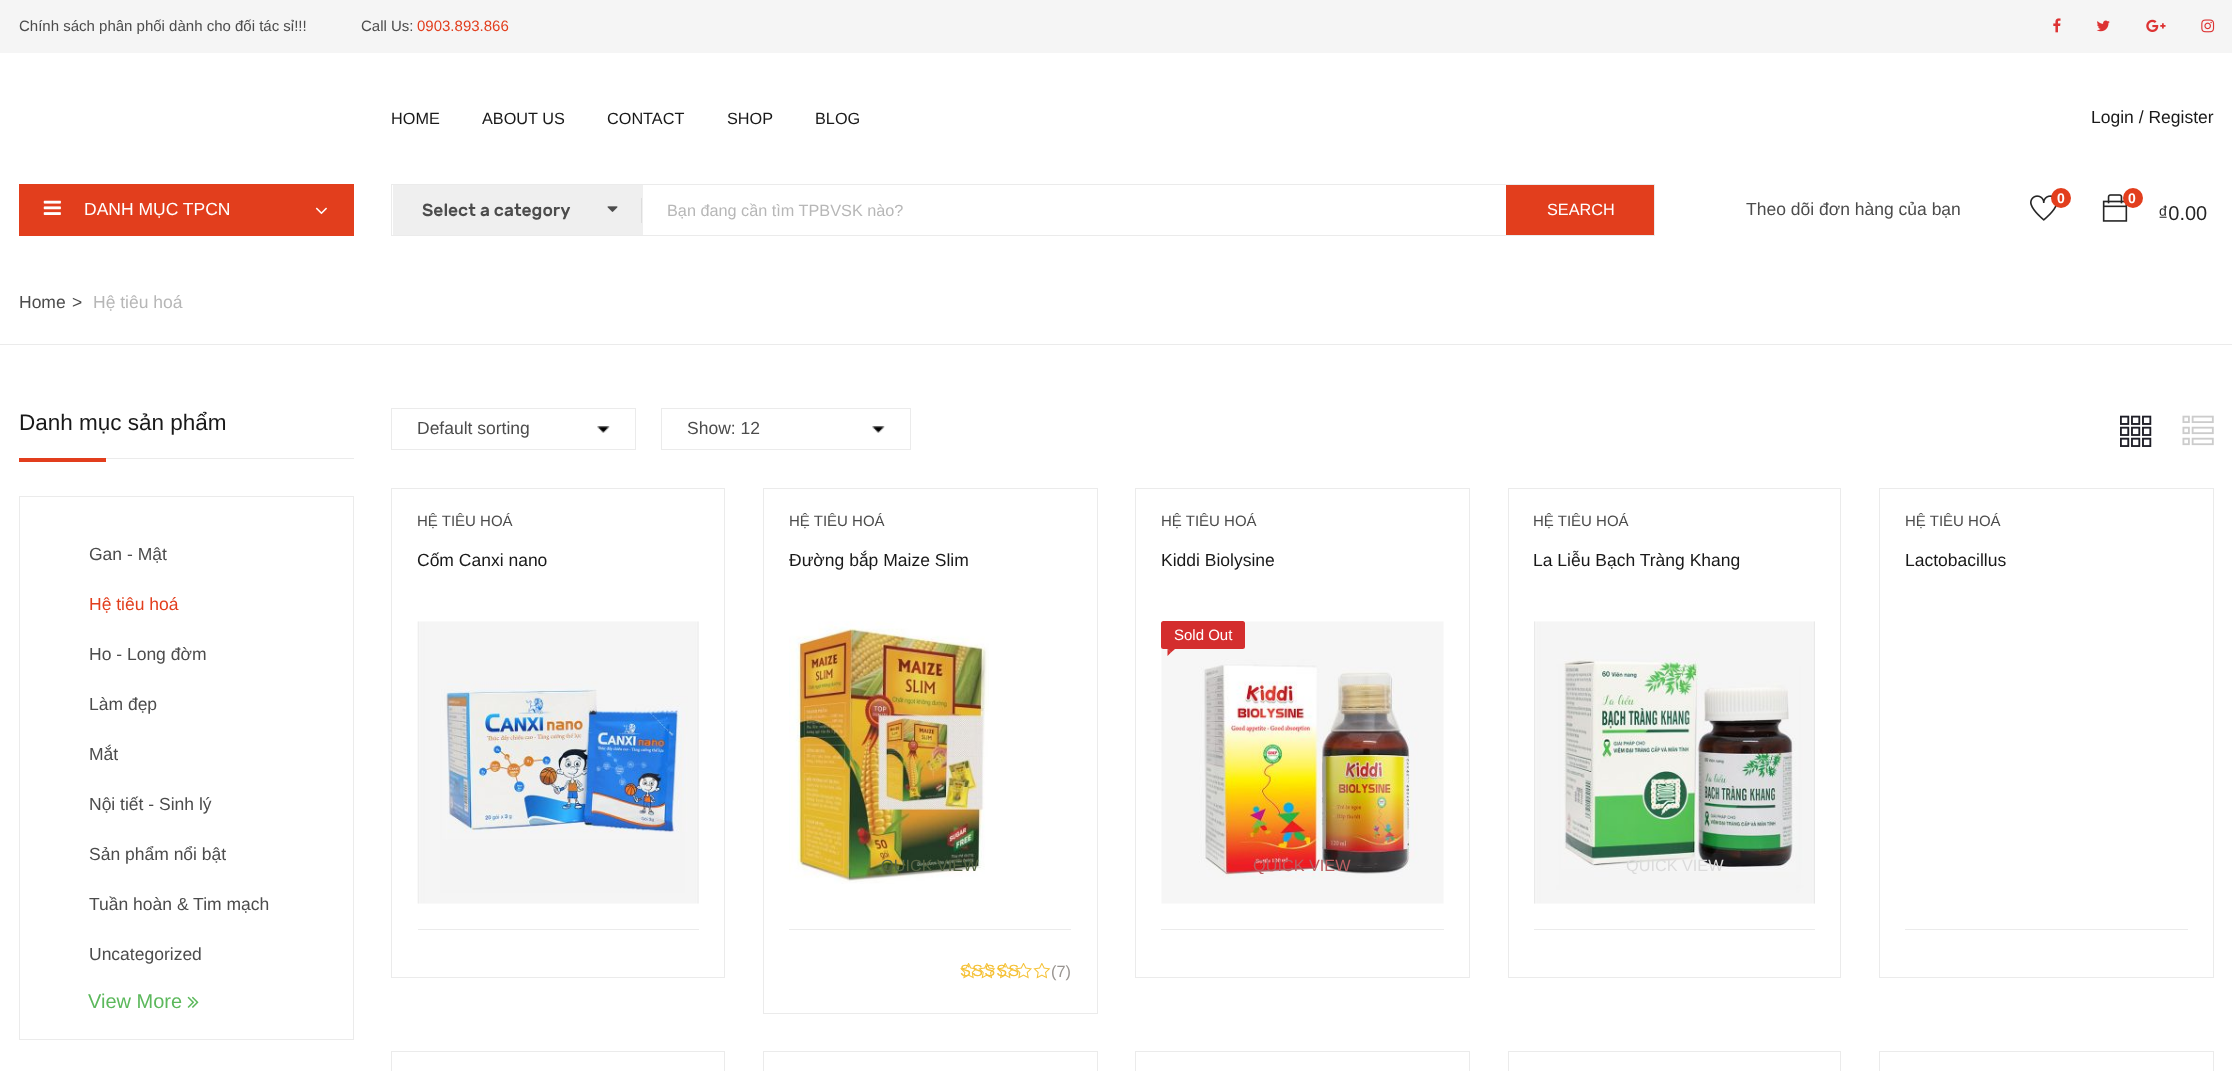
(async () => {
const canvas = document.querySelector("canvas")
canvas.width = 2232
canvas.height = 1071
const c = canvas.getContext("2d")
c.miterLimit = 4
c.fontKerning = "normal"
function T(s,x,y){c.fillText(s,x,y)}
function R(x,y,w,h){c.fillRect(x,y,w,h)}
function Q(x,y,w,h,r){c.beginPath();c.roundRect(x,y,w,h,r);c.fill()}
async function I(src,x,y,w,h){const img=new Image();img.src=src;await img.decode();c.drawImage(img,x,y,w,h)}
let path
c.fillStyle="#fff"
R(0,0,2232,1071)
c.fillStyle="#f5f5f5"
R(0,0,2232,53)
c.font="15px Liberation Sans"
c.fillStyle="#4c4c4c"
T("Chính sách phân phối dành cho đối tác sỉ!!!",19,31)
T("Call Us:",361,31)
c.fillStyle="#e23e1d"
T("0903.893.866",417,31)
await I("1.png",2053,18,8,15)
await I("2.png",2096,20,14,12)
await I("3.png",2146,19,20,13)
await I("4.png",2201,19,14,14)
c.font="16.25px Liberation Sans"
c.fillStyle="#191919"
T("HOME",391,124)
T("ABOUT US",482,124)
T("CONTACT",607,124)
T("SHOP",727,124)
T("BLOG",815,124)
c.font="17.5px Liberation Sans"
T("Login / Register",2091,123)
c.fillStyle="#e23e1d"
R(19,184,335,52)
await I("5.png",43,200,18,15)
c.fillStyle="#fff"
T("DANH MỤC TPCN",84,215)
await I("6.png",315,207,12,8)
c.strokeStyle="#ebebeb"
c.strokeRect(391.5,184.5,1263,51)
c.fillStyle="#efefef"
R(393,185,250,50)
c.font="500 17.5px Rubik"
c.fillStyle="#4c4c4c"
T("Select a category",422,216)
await I("7.png",607,206,11,6)
c.fillStyle="#ddd"
R(641,198,1,25)
c.font="16.25px Liberation Sans"
c.fillStyle="#b7b7b7"
T("Bạn đang cần tìm TPBVSK nào?",667,216)
c.fillStyle="#e23e1d"
R(1506,185,148,50)
c.fillStyle="#fff"
T("SEARCH",1547,215)
c.font="17.5px Liberation Sans"
c.fillStyle="#4c4c4c"
T("Theo dõi đơn hàng của bạn",1746,215)
await I("8.png",2030,195,27,26)
c.fillStyle="#e23e1d"
c.beginPath()
c.arc(2061,198,10,0,7)
c.fill()
c.font="bold 14px Liberation Sans"
c.fillStyle="#fff"
T("0",2057,203)
await I("9.png",2102,194,26,28)
c.fillStyle="#e23e1d"
c.beginPath()
c.arc(2133,198,10,0,7)
c.fill()
c.fillStyle="#fff"
T("0",2128,203)
c.font="20px Liberation Sans"
c.fillStyle="#252525"
T("₫0.00",2158,220)
c.fillStyle="#ebebeb"
R(0,344,2232,1)
c.font="17.5px Liberation Sans"
c.fillStyle="#4c4c4c"
T("Home",19,308)
T(">",72,308)
c.fillStyle="#b7b7b7"
T("Hệ tiêu hoá",93,308)
c.fillStyle="#ebebeb"
R(106,458,248,1)
c.font="22.5px Liberation Sans"
c.fillStyle="#191919"
T("Danh mục sản phẩm",19,430)
c.fillStyle="#e23e1d"
R(19,458,87,4)
c.strokeRect(19.5,496.5,334,543)
c.font="17.5px Liberation Sans"
c.fillStyle="#4c4c4c"
T("Gan - Mật",89,560)
c.fillStyle="#e23e1d"
T("Hệ tiêu hoá",89,610)
c.fillStyle="#4c4c4c"
T("Ho - Long đờm",89,660)
T("Làm đẹp",89,710)
T("Mắt",89,760)
T("Nội tiết - Sinh lý",89,810)
T("Sản phẩm nổi bật",89,860)
T("Tuần hoàn & Tim mạch",89,910)
T("Uncategorized",89,960)
c.font="20px Liberation Sans"
c.fillStyle="#5cb85c"
T("View More",88,1008)
await I("10.png",187,996,12,12)
await I("11.png",597,426,13,7)
c.strokeRect(391.5,408.5,244,41)
c.font="17.5px Liberation Sans"
c.fillStyle="#4c4c4c"
T("Default sorting",417,434)
await I("11.png",872,426,13,7)
c.strokeRect(661.5,408.5,249,41)
T("Show: 12",687,434)
await I("12.png",2120,415,32,32)
await I("13.png",2182,415,32,31)
c.strokeRect(391.5,488.5,333,489)
c.font="15px Liberation Sans"
T("HỆ TIÊU HOÁ",417,526)
c.font="17.5px Liberation Sans"
c.fillStyle="#191919"
T("Cốm Canxi nano",417,566)
c.fillStyle="#ebebeb"
R(418,929,281,1)
await I("14.png",417,621,282,283)
c.strokeRect(763.5,488.5,334,525)
c.font="15px Liberation Sans"
c.fillStyle="#4c4c4c"
T("HỆ TIÊU HOÁ",789,526)
c.font="17.5px Liberation Sans"
c.fillStyle="#191919"
T("Đường bắp Maize Slim",789,566)
c.fillStyle="#ebebeb"
R(789,929,282,1)
await I("15.png",789,621,200,263)
c.font="16.25px Liberation Sans"
c.fillStyle="#566344"
T("QUICK VIEW",881,871)
await I("16.png",960,963,91,16)
c.letterSpacing="1.25px"
c.fillStyle="#f5c136"
T("SSSSS",960,976)
c.letterSpacing="0px"
c.fillStyle="#999591"
T("(7)",1051,977)
c.strokeRect(1135.5,488.5,334,489)
c.font="15px Liberation Sans"
c.fillStyle="#4c4c4c"
T("HỆ TIÊU HOÁ",1161,526)
c.font="17.5px Liberation Sans"
c.fillStyle="#191919"
T("Kiddi Biolysine",1161,566)
c.fillStyle="#ebebeb"
R(1161,929,283,1)
await I("17.png",1161,621,283,283)
c.fillStyle="#d42e2e"
Q(1161,621,84,28,2.5)
c.font="15px Liberation Sans"
c.fillStyle="#fff"
T("Sold Out",1174,640)
c.fillStyle="#d42e2e"
path = new Path2D("M1167.5 649h7.5l-4 3.5z")
c.fill(path)
path = new Path2D("M1167.5 656v-7l3.5 3.5z")
c.fill(path)
c.font="16.25px Liberation Sans"
c.fillStyle="#b85e61"
T("QUICK VIEW",1253,871)
c.strokeRect(1508.5,488.5,332,489)
c.font="15px Liberation Sans"
c.fillStyle="#4c4c4c"
T("HỆ TIÊU HOÁ",1533,526)
c.font="17.5px Liberation Sans"
c.fillStyle="#191919"
T("La Liễu Bạch Tràng Khang",1533,566)
c.fillStyle="#ebebeb"
R(1534,929,281,1)
await I("18.png",1534,621,281,283)
c.font="16.25px Liberation Sans"
c.fillStyle="#dbdbdb"
T("QUICK VIEW",1626,871)
c.strokeRect(1879.5,488.5,334,489)
c.font="15px Liberation Sans"
c.fillStyle="#4c4c4c"
T("HỆ TIÊU HOÁ",1905,526)
c.font="17.5px Liberation Sans"
c.fillStyle="#191919"
T("Lactobacillus",1905,566)
c.fillStyle="#ebebeb"
R(1905,929,283,1)
c.strokeRect(391.5,1051.5,333,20)
c.strokeRect(763.5,1051.5,334,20)
c.strokeRect(1135.5,1051.5,334,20)
c.strokeRect(1508.5,1051.5,332,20)
c.strokeRect(1879.5,1051.5,334,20)
})()
